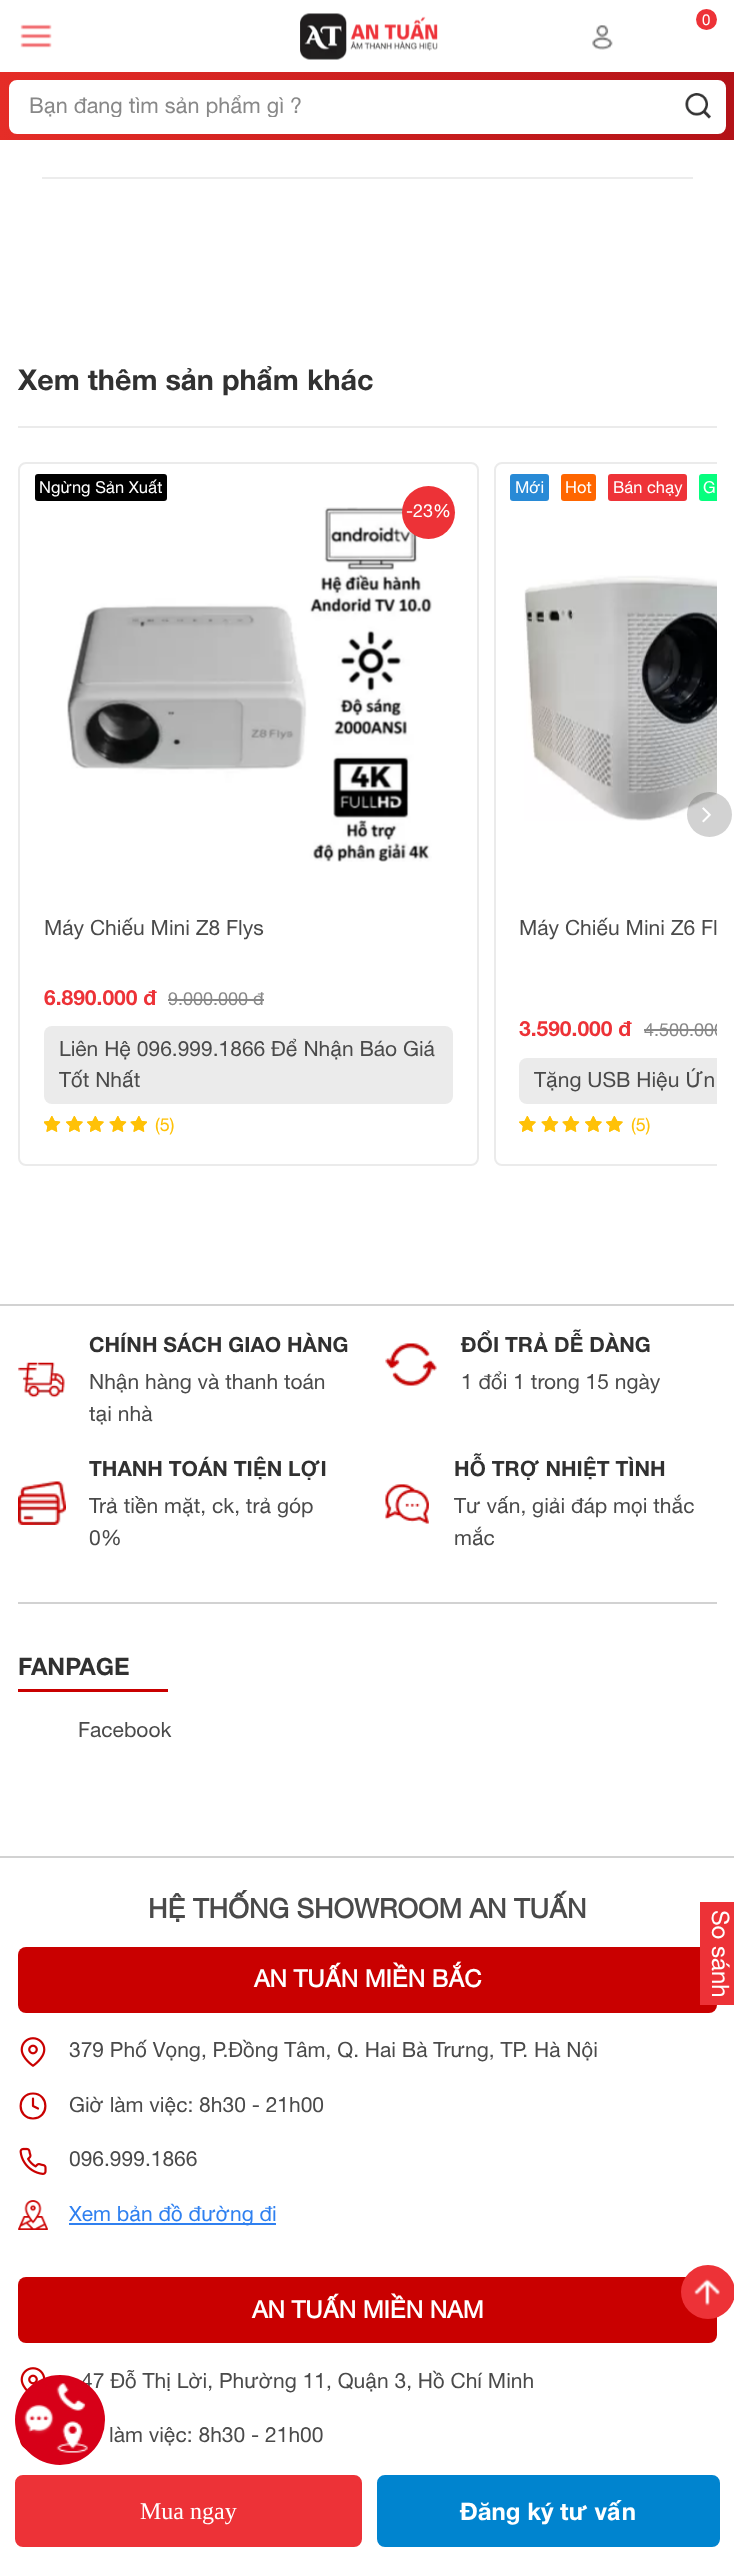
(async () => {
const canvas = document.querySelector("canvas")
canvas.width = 734
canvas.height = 2576
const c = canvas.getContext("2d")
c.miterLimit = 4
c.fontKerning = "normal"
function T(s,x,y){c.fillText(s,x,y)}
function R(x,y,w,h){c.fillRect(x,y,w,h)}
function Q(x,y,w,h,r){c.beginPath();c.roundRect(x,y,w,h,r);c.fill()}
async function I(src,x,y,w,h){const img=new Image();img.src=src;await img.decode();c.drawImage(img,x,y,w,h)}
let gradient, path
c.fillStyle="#fff"
R(0,0,734,2576)
await I("1.png",20,24,32,24)
await I("2.png",300,13,138,47)
c.fillStyle="#ed3237"
c.beginPath()
c.arc(706.5,19.5,10.5,0,7)
c.fill()
c.font="15px Helvetica Neue"
c.fillStyle="#fff"
T("0",702,25)
await I("3.png",592,25,21,25)
gradient = c.createLinearGradient(0,106,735,106)
gradient.addColorStop(0,"#e52d27")
gradient.addColorStop(1,"#b31217")
c.fillStyle = gradient
R(0,72,734,68)
c.fillStyle="#fff"
c.beginPath()
c.roundRect(10,81,715,52,7)
c.fill()
c.strokeStyle="#fff"
c.lineWidth=2
c.stroke()
c.save()
c.beginPath()
c.rect(29,92,625,25)
c.clip()
c.font="21.6px Helvetica Neue"
c.fillStyle="#888"
T("Bạn đang tìm sản phẩm gì ?",29,113)
c.restore()
await I("4.png",685,93,26,26)
c.fillStyle="#ececec"
R(42,177,651,2)
c.fillStyle="#ebebeb"
R(18,426,699,2)
c.font="bold 28.75px Helvetica Neue"
c.fillStyle="#313131"
T("Xem thêm sản phẩm khác",18,390)
c.beginPath()
c.roundRect(19,463,459,702,7)
c.strokeStyle="#ebebeb"
c.stroke()
c.fillStyle="#000"
Q(35,474,132,27,3)
c.font="16.5px Helvetica Neue"
c.fillStyle="#fff"
T("Ngừng Sản Xuất",39,493)
await I("13.png",67,507,365,355)
c.fillStyle="#ed3237"
c.beginPath()
c.arc(428.5,512.5,26.5,0,7)
c.fill()
c.font="18px Helvetica Neue"
c.fillStyle="#fff"
T("-23%",406,517)
await I("5.png",44,1116,17,16)
await I("6.png",44,1116,17,16)
await I("10.png",66,1116,17,16)
await I("7.png",66,1116,17,16)
await I("10.png",87,1116,17,16)
await I("7.png",87,1116,17,16)
await I("11.png",109,1116,18,16)
await I("8.png",109,1116,18,16)
await I("12.png",130,1116,17,16)
await I("9.png",130,1116,17,16)
c.fillStyle="#ffc107"
T("(5)",155,1131)
c.font="21px Helvetica Neue"
c.fillStyle="#4a4a4a"
T("Máy Chiếu Mini Z8 Flys",44,935)
c.font="bold 21px Helvetica Neue"
c.fillStyle="#ed3237"
T("6.890.000 đ",44,1005)
c.font="18px Helvetica Neue"
c.fillStyle="#888"
T("9.000.000 đ",168,1005)
R(168,999,96,2)
c.fillStyle="#ebebeb"
Q(44,1026,409,78,8)
c.font="21px Helvetica Neue"
c.fillStyle="#4a4a4a"
T("Liên Hệ 096.999.1866 Để Nhận Báo Giá",59,1056)
T("Tốt Nhất",59,1087)
c.save()
c.beginPath()
c.rect(18,450,699,728)
c.clip()
c.beginPath()
c.roundRect(495,463,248,702,7)
c.stroke()
c.restore()
c.fillStyle="#288ad6"
Q(510,474,39,27,3)
c.font="16.5px Helvetica Neue"
c.fillStyle="#fff"
T("Mới",515,493)
c.fillStyle="#f60"
Q(561,474,35,27,3)
c.fillStyle="#fff"
T("Hot",565,493)
c.fillStyle="#ee3338"
Q(608,474,79,27,3)
c.fillStyle="#fff"
T("Bán chạy",613,493)
c.fillStyle="#06fe7e"
c.beginPath()
c.roundRect(699,474,18,27,[3,0,0,3])
c.fill()
c.fillStyle="#fff"
T("G",703,493)
await I("14.png",524,575,193,246)
c.font="21px Helvetica Neue"
c.fillStyle="#4a4a4a"
T("Máy Chiếu Mini Z6 Fl",519,935)
c.font="bold 21px Helvetica Neue"
c.fillStyle="#ed3237"
T("3.590.000 đ",519,1036)
c.save()
c.beginPath()
c.rect(18,450,699,728)
c.clip()
c.font="18px Helvetica Neue"
c.fillStyle="#888"
T("4.500.000",644,1036)
c.restore()
c.fillStyle="#888"
R(644,1029,73,2)
c.fillStyle="#ebebeb"
c.beginPath()
c.roundRect(519,1058,198,46,[8,0,0,8])
c.fill()
c.font="21px Helvetica Neue"
c.fillStyle="#4a4a4a"
T("Tặng USB Hiệu Ứn",534,1087)
await I("10.png",519,1116,17,16)
await I("7.png",519,1116,17,16)
await I("11.png",541,1116,18,16)
await I("8.png",541,1116,18,16)
await I("11.png",562,1116,18,16)
await I("8.png",562,1116,18,16)
await I("10.png",585,1116,17,16)
await I("7.png",585,1116,17,16)
await I("10.png",606,1116,17,16)
await I("7.png",606,1116,17,16)
c.font="18px Helvetica Neue"
c.fillStyle="#ffc107"
T("(5)",631,1131)
c.fillStyle="#201e1e33"
c.beginPath()
c.arc(709.5,814.5,22.5,0,7)
c.fill()
await I("15.png",702,807,9,16)
c.fillStyle="#d2d2d2"
R(0,1304,734,2)
await I("16.png",18,1362,47,36)
c.font="bold 21px Helvetica Neue"
c.fillStyle="#313131"
T("CHÍNH SÁCH GIAO HÀNG",89,1352)
c.font="21px Helvetica Neue"
c.fillStyle="#4a4a4a"
T("Nhận hàng và thanh toán",89,1389)
T("tại nhà",89,1421)
await I("17.png",385,1343,52,43)
c.font="bold 21px Helvetica Neue"
c.fillStyle="#313131"
T("ĐỔI TRẢ DỄ DÀNG",461,1352)
c.font="21px Helvetica Neue"
c.fillStyle="#4a4a4a"
T("1 đổi 1 trong 15 ngày",461,1389)
await I("18.png",18,1481,48,44)
c.font="bold 21px Helvetica Neue"
c.fillStyle="#313131"
T("THANH TOÁN TIỆN LỢI",89,1476)
c.font="21px Helvetica Neue"
c.fillStyle="#4a4a4a"
T("Trả tiền mặt, ck, trả góp",89,1513)
T("0%",89,1545)
await I("19.png",385,1484,44,40)
c.font="bold 21px Helvetica Neue"
c.fillStyle="#313131"
T("HỖ TRỢ NHIỆT TÌNH",454,1476)
c.font="21px Helvetica Neue"
c.fillStyle="#4a4a4a"
T("Tư vấn, giải đáp mọi thắc",454,1513)
T("mắc",454,1545)
c.fillStyle="#d2d2d2"
R(18,1602,699,2)
c.font="bold 24px Helvetica Neue"
c.fillStyle="#313131"
T("FANPAGE",18,1675)
c.fillStyle="#c90000"
R(18,1689,150,3)
c.font="21px Helvetica Neue"
c.fillStyle="#4a4a4a"
T("Facebook",78,1737)
c.fillStyle="#d2d2d2"
R(0,1856,734,2)
c.font="bold 27px 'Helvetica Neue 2'"
c.fillStyle="#4a4a4a"
T("HỆ THỐNG SHOWROOM AN TUẤN",148,1918)
c.fillStyle="#c90000"
Q(18,1947,699,66,8)
c.font="bold 24px 'Helvetica Neue 2'"
c.fillStyle="#fff"
T("AN TUẤN MIỀN BẮC",254,1987)
await I("20.png",20,2037,26,30)
c.font="21px Helvetica Neue"
c.fillStyle="#4a4a4a"
T("379 Phố Vọng, P.Đồng Tâm, Q. Hai Bà Trưng, TP. Hà Nội",69,2057)
path = new Path2D("M33 2118.5c16.5 0 16.5-25 0-25c-16.5 0-16.5 25 0 25zm0-20v7.5l5 2.5")
c.strokeStyle="#c90000"
c.lineWidth=2.2
c.lineCap="round"
c.lineJoin="round"
c.stroke(path)
T("Giờ làm việc: 8h30 - 21h00",69,2112)
await I("21.png",19,2147,28,28)
T("096.999.1866",69,2166)
await I("22.png",18,2200,30,30)
c.fillStyle="#2f80f0"
R(69,2223,207,2)
T("Xem bản đồ đường đi",69,2221)
c.fillStyle="#c90000"
Q(18,2277,699,66,8)
c.font="bold 24px 'Helvetica Neue 2'"
c.fillStyle="#fff"
T("AN TUẤN MIỀN NAM",252,2318)
await I("23.png",20,2367,26,24)
c.font="21px Helvetica Neue"
c.fillStyle="#4a4a4a"
T("47 Đỗ Thị Lời, Phường 11, Quận 3, Hồ Chí Minh",81,2388)
path = new Path2D("M33 2450c16.5 0 16.5-25 0-25c-16.5 0-16.5 25 0 25z")
c.stroke(path)
T("làm việc: 8h30 - 21h00",109,2442)
c.fillStyle="#ed3237"
R(700,1902,34,103)
c.font="24px Helvetica Neue"
c.fillStyle="#fff"
c.save()
c.translate(712,1910)
c.rotate(90 * Math.PI / 180)
c.fillText("So sánh",0,0)
c.restore()
c.fillStyle="#ed3237"
c.beginPath()
c.arc(708,2292,27,0,7)
c.fill()
await I("24.png",694,2278,26,28)
c.fillStyle="#d70018"
c.beginPath()
c.arc(60,2420,45,0,7)
c.fill()
await I("25.png",23,2383,65,70)
c.fillStyle="#ed3237"
c.beginPath()
c.roundRect(16,2476,345,70,7)
c.fill()
c.strokeStyle="#ed3237"
c.lineWidth=2
c.lineJoin="miter"
c.stroke()
c.font="24px Liberation Serif"
c.fillStyle="#fff"
T("Mua ngay",140,2519)
c.fillStyle="#0084cf"
c.beginPath()
c.roundRect(378,2476,341,70,7)
c.fill()
c.strokeStyle="#0084cf"
c.stroke()
c.font="bold 24px Helvetica Neue"
c.fillStyle="#fff"
T("Đăng ký tư vấn",460,2520)
})()
